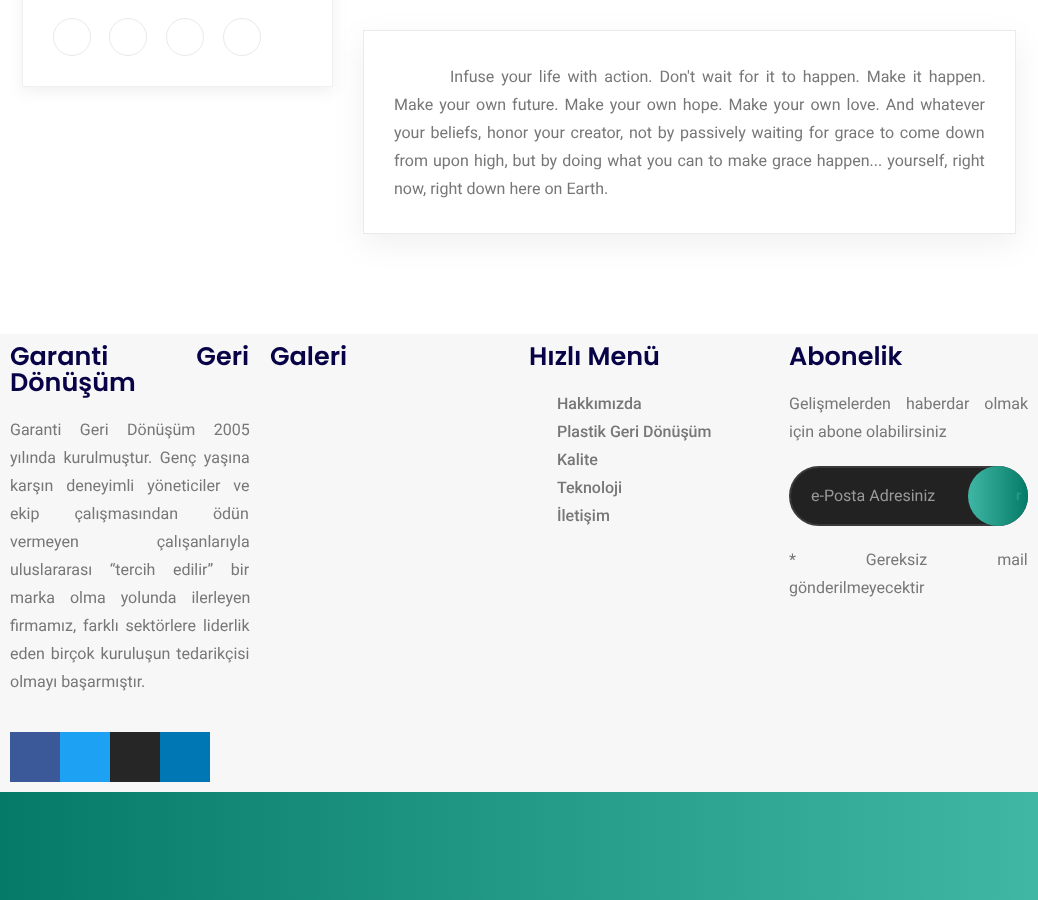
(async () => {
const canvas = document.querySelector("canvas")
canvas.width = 1038
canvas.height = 900
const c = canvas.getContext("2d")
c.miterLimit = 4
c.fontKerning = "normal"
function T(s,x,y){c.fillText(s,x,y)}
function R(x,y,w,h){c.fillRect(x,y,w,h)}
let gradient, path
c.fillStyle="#fff"
R(0,0,1038,900)
c.save()
path = new Path2D("M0 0h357v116h-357zm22-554h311v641h-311z")
c.clip(path,"evenodd")
c.fillStyle="#0000000f"
c.filter="blur(7.5px)"
c.beginPath()
c.rect(22,-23,311,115)
c.fill()
c.filter="none"
c.restore()
c.strokeStyle="#f0f0f0"
c.strokeRect(22.5,-.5,310,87)
c.beginPath()
c.arc(72,37,18.5,0,7)
c.strokeStyle="#e9e9ee"
c.stroke()
c.beginPath()
c.arc(128,37,18.5,0,7)
c.stroke()
c.beginPath()
c.arc(185,37,18.5,0,7)
c.stroke()
c.beginPath()
c.arc(242,37,18.5,0,7)
c.stroke()
c.save()
path = new Path2D("M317 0h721v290h-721zm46 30h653v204h-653z")
c.clip(path,"evenodd")
c.fillStyle="#0000000f"
c.filter="blur(15px)"
c.beginPath()
c.rect(363,40,653,204)
c.fill()
c.filter="none"
c.restore()
c.strokeRect(363.5,30.5,652,203)
c.wordSpacing="2.9px"
c.font="16px Roboto"
c.fillStyle="#777"
T("Infuse your life with action. Don't wait for it to happen. Make it happen.",450,82)
c.wordSpacing="2.1px"
T("Make your own future. Make your own hope. Make your own love. And whatever",394,110)
c.wordSpacing="1.75px"
T("your beliefs, honor your creator, not by passively waiting for grace to come down",394,138)
c.wordSpacing="1.1px"
T("from upon high, but by doing what you can to make grace happen... yourself, right",394,166)
c.wordSpacing="0px"
T("now, right down here on Earth.",394,194)
c.fillStyle="#f7f7f7"
R(0,334,1038,458)
c.wordSpacing="82px"
c.font="600 25.5px Poppins"
c.fillStyle="#070346"
T("Garanti Geri",10,365)
c.wordSpacing="0px"
T("Dönüşüm",10,391)
c.wordSpacing="14.5px"
c.font="16px Roboto"
c.fillStyle="#777"
T("Garanti Geri Dönüşüm 2005",10,435)
c.wordSpacing="3.5px"
T("yılında kurulmuştur. Genç yaşına",10,463)
c.wordSpacing="9px"
T("karşın deneyimli yöneticiler ve",10,491)
c.wordSpacing="31px"
T("ekip çalışmasından ödün",10,519)
c.wordSpacing="74px"
T("vermeyen çalışanlarıyla",10,547)
c.wordSpacing="13.5px"
T("uluslararası “tercih edilir” bir",10,575)
c.wordSpacing="11px"
T("marka olma yolunda ilerleyen",10,603)
c.wordSpacing="2.9px"
T("firmamız, farklı sektörlere liderlik",10,631)
c.wordSpacing="2px"
T("eden birçok kuruluşun tedarikçisi",10,659)
c.wordSpacing="0px"
T("olmayı başarmıştır.",10,687)
c.fillStyle="#3b5998"
R(10,732,50,50)
c.fillStyle="#1da1f2"
R(60,732,50,50)
c.fillStyle="#262626"
R(110,732,50,50)
c.fillStyle="#0077b5"
R(160,732,50,50)
c.font="600 25.5px Poppins"
c.fillStyle="#070346"
T("Galeri",270,365)
T("Hızlı Menü",529,365)
c.font="500 16px Roboto"
c.fillStyle="#777"
T("Hakkımızda",557,409)
T("Plastik Geri Dönüşüm",557,437)
T("Kalite",557,465)
T("Teknoloji",557,493)
T("İletişim",557,521)
c.font="600 25.5px Poppins"
c.fillStyle="#070346"
T("Abonelik",789,365)
c.wordSpacing="11px"
c.font="16px Roboto"
c.fillStyle="#777"
T("Gelişmelerden haberdar olmak",789,409)
c.wordSpacing="0px"
T("için abone olabilirsiniz",789,437)
c.fillStyle="#222"
c.beginPath()
c.roundRect(790,467,237,58,29)
c.fill()
c.strokeStyle="#3a3a3a"
c.lineWidth=2
c.stroke()
c.fillStyle="#999"
T("e-Posta Adresiniz",811,501)
gradient = c.createLinearGradient(968,496,1028,496)
gradient.addColorStop(0,"#40b7a4")
gradient.addColorStop(1,"#057a68")
c.fillStyle = gradient
c.beginPath()
c.arc(998,496,30,0,7)
c.fill()
c.font="bold 14px Roboto"
c.fillStyle="#239987"
T("r",1016,500)
c.wordSpacing="66px"
c.font="16px Roboto"
c.fillStyle="#777"
T("* Gereksiz mail",789,565)
c.wordSpacing="0px"
T("gönderilmeyecektir",789,593)
gradient = c.createLinearGradient(0,894,1038,894)
gradient.addColorStop(0,"#057a68")
gradient.addColorStop(1,"#40b7a4")
c.fillStyle = gradient
R(0,792,1038,108)
})()
